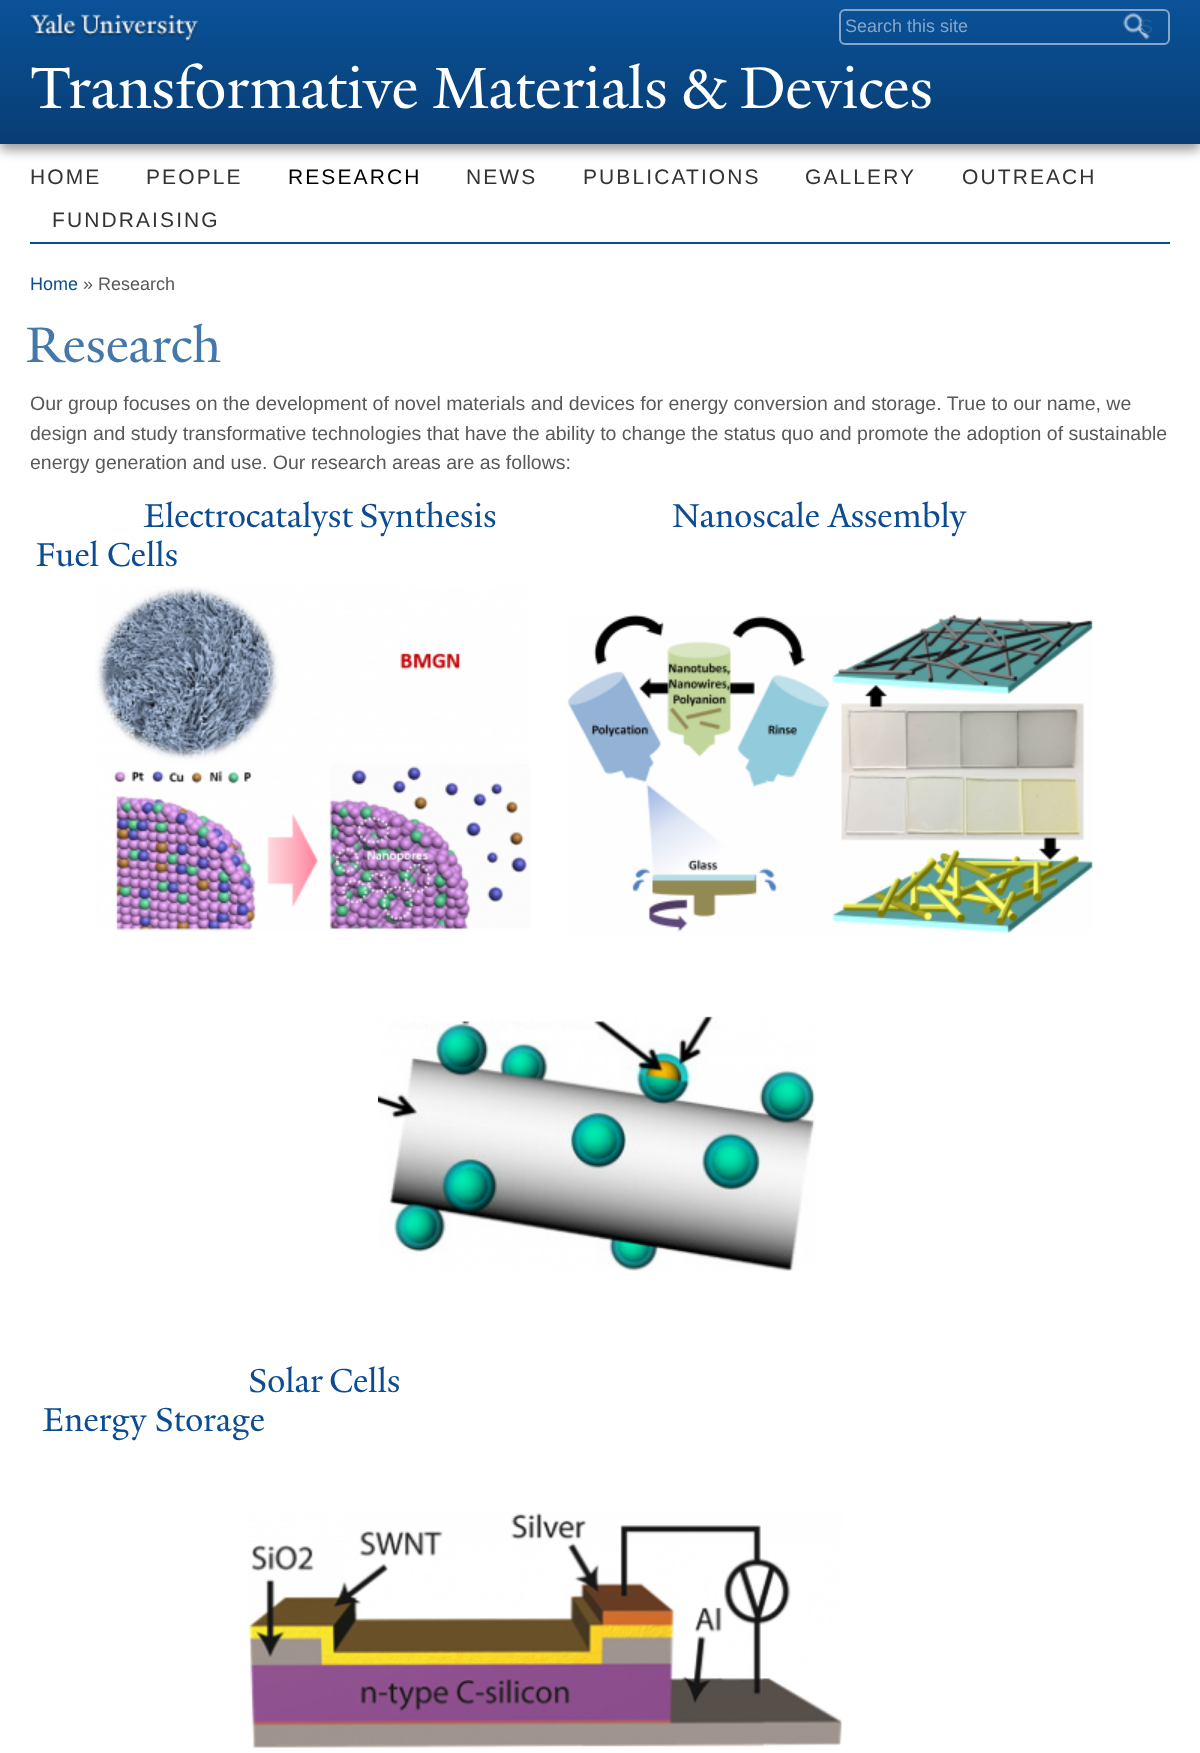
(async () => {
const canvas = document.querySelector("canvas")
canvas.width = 1200
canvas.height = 1753
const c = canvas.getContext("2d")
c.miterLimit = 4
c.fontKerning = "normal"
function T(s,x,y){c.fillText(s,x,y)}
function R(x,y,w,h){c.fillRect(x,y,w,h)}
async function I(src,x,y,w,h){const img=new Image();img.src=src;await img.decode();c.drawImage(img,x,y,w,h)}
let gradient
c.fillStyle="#fff"
R(0,0,1200,1753)
c.fillStyle="#00000066"
c.filter="blur(6px)"
c.beginPath()
c.rect(0,6,1200,144)
c.fill()
c.filter="none"
gradient = c.createLinearGradient(600,0,600,144)
gradient.addColorStop(0,"#0a5299")
gradient.addColorStop(1,"#083d73")
c.fillStyle = gradient
R(0,0,1200,144)
await I("1.png",30,13,168,30)
c.beginPath()
c.roundRect(840,10,329,34,5)
c.strokeStyle="#85a6c9"
c.lineWidth=2
c.stroke()
c.font="18px Liberation Sans"
c.fillStyle="#85a6c9"
T("Search this site",845,32)
await I("2.png",1122,12,28,28)
c.font="19.5px Liberation Sans"
c.fillStyle="#225f9d"
T("S",1140,33)
c.letterSpacing="-3px"
c.font="63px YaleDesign"
c.fillStyle="#fff"
T("T",30,108)
c.letterSpacing="0px"
T("ransformative Materials & Devices",68,108)
c.fillStyle="#0c4c92"
R(30,242,1140,2)
c.letterSpacing="2.1px"
c.font="21px Liberation Sans"
c.fillStyle="#333"
T("HOME",30,184)
T("PEOPLE",146,184)
c.fillStyle="#000"
T("RESEARCH",288,184)
c.fillStyle="#333"
T("NEWS",466,184)
T("PUBLICATIONS",583,184)
T("GALLERY",805,184)
T("OUTREACH",962,184)
T("FUNDRAISING",52,227)
c.letterSpacing="0px"
c.font="18px Liberation Sans"
c.fillStyle="#0c4c92"
T("Home",30,290)
c.fillStyle="#585858"
T("» Research",83,290)
c.font="54px YaleDesign"
c.fillStyle="#47a"
T("Research",26,362)
c.font="19.5px Liberation Sans"
c.fillStyle="#585858"
T("Our group focuses on the development of novel materials and devices for energy conversion and storage. True to our name, we",30,410)
T("design and study transformative technologies that have the ability to change the status quo and promote the adoption of sustainable",30,440)
T("energy generation and use. Our research areas are as follows:",30,469)
c.wordSpacing="-2px"
c.font="36px YaleDesign"
c.fillStyle="#0c4c92"
T("Electrocatalyst Synthesis",144,527)
c.wordSpacing="0px"
T("Nanoscale Assembly",672,527)
T("Fuel Cells",36,566)
await I("3.png",95,586,435,345)
await I("4.png",567,614,526,320)
await I("5.png",378,1016,438,255)
c.wordSpacing="-2px"
T("Solar Cells",248,1392)
c.wordSpacing="0px"
T("Energy Storage",43,1431)
await I("6.png",248,1512,594,236)
})()
